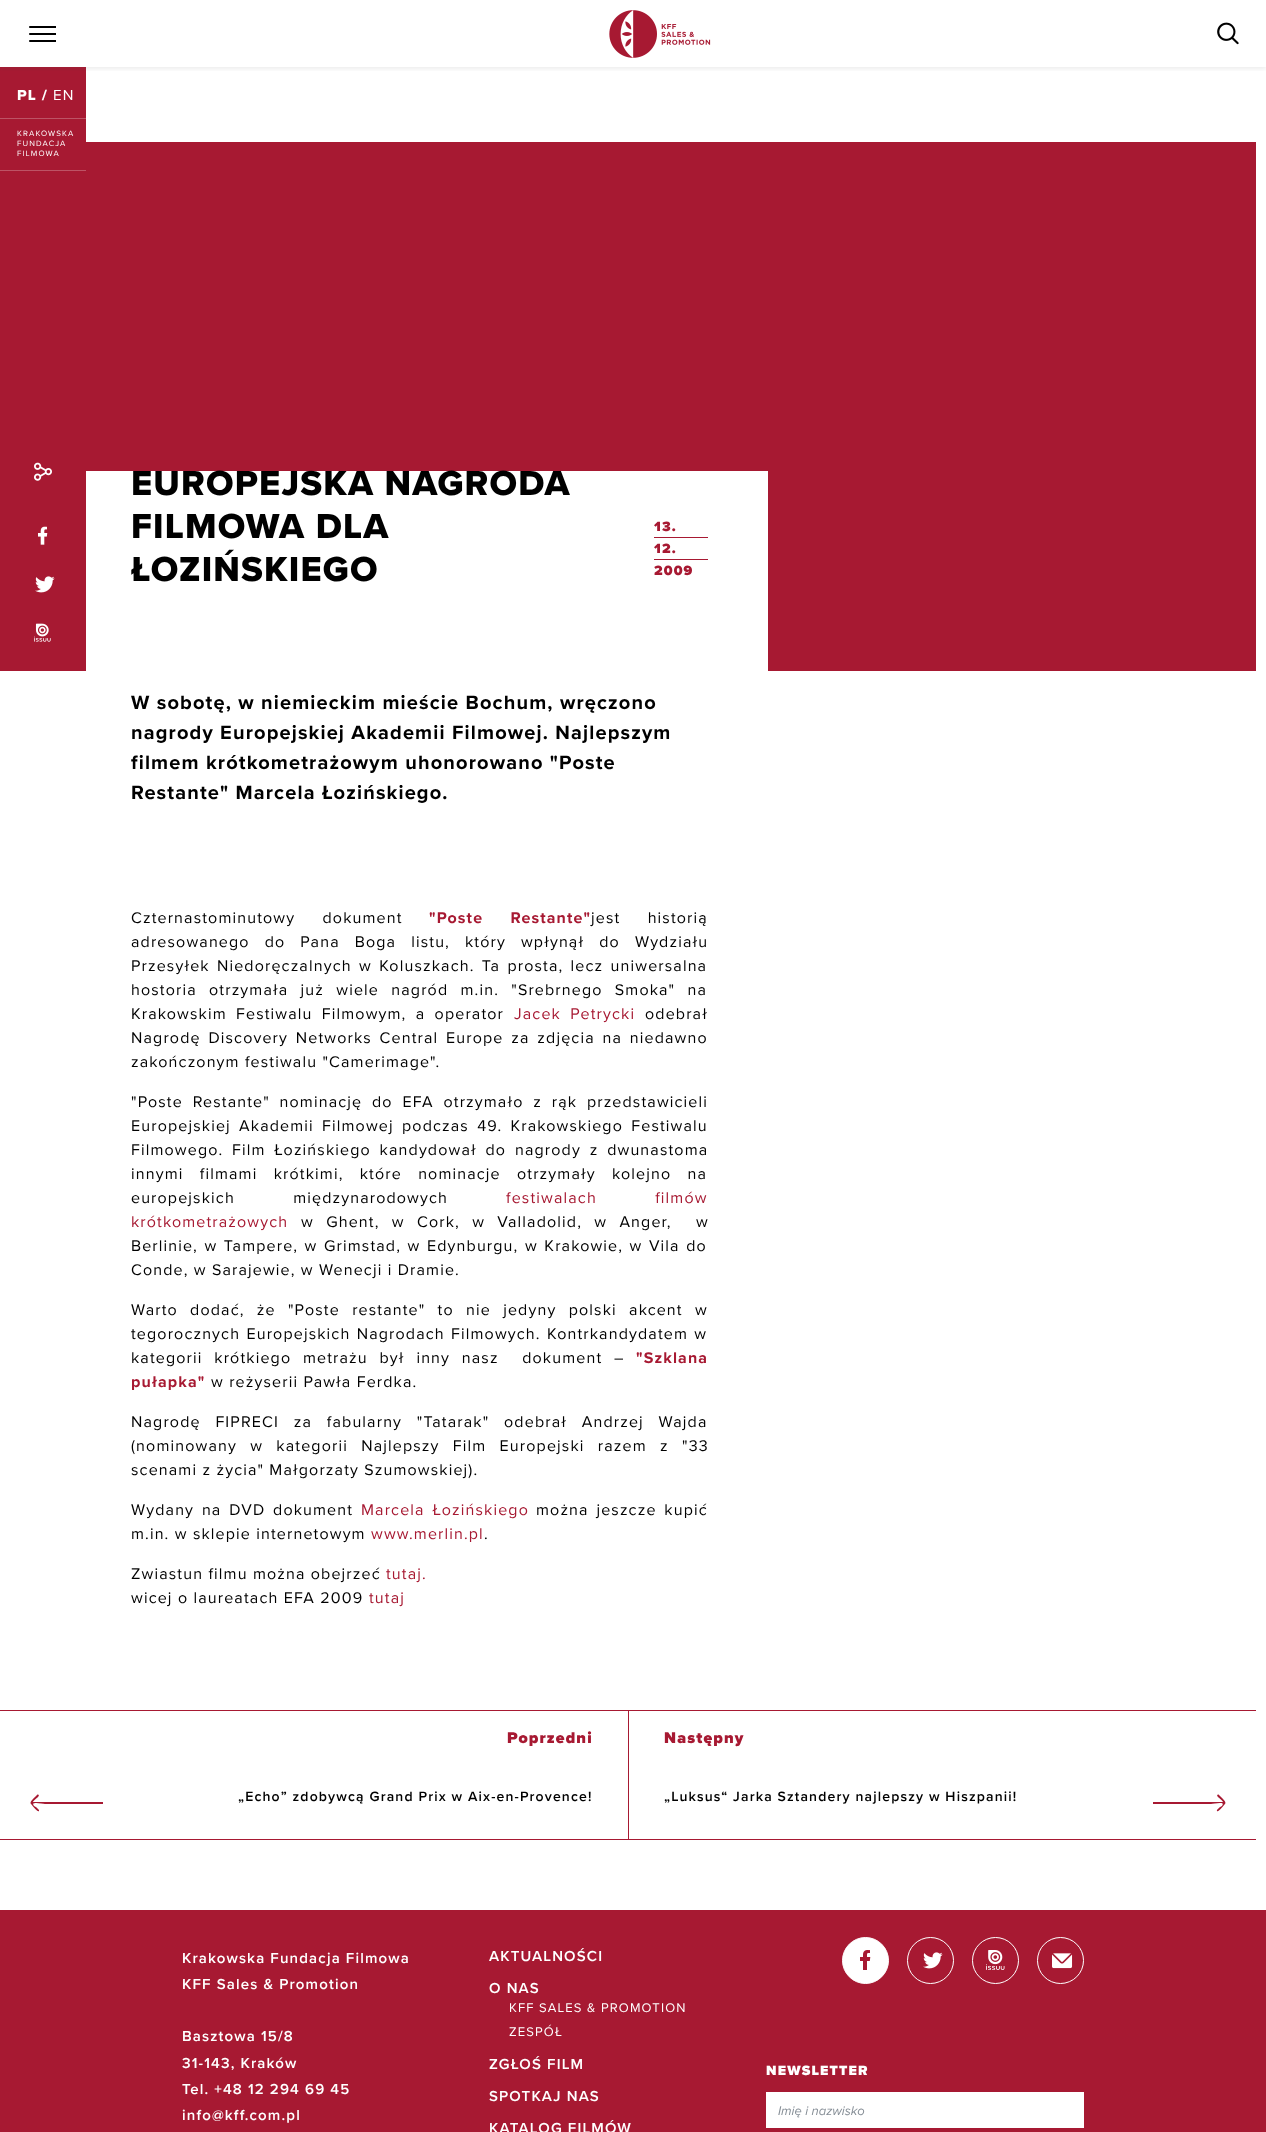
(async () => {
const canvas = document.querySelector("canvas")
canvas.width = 1266
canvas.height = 2132
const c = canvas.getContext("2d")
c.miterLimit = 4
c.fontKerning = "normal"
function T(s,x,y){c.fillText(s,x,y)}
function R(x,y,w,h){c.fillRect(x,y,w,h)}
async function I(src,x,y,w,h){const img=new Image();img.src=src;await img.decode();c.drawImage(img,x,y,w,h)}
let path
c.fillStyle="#fff"
R(0,0,1266,2132)
c.fillStyle="#a71932"
R(0,67,86,604)
c.save()
c.beginPath()
c.rect(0,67,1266,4)
c.clip()
c.fillStyle="#5252521c"
c.filter="blur(2px)"
c.beginPath()
c.rect(0,2,1266,67)
c.fill()
c.filter="none"
c.restore()
await I("1.png",29,26,27,16)
await I("2.png",609,10,102,48)
await I("3.png",1217,22,22,23)
c.fillStyle="#bd5365"
R(0,118,86,1)
c.letterSpacing="1.15px"
c.font="800 15px Proxima Nova"
c.fillStyle="#fff"
T("PL /",17,100)
c.font="15px Proxima Nova"
T("EN",53,100)
c.fillStyle="#bd5365"
R(0,170,86,1)
c.font="8px Proxima Nova"
c.fillStyle="#fff"
T("KRAKOWSKA",17,136)
T("FUNDACJA",17,146)
T("FILMOWA",17,156)
await I("4.png",34,462,18,19)
await I("5.png",38,526,10,19)
await I("6.png",35,576,20,17)
await I("7.png",34,623,17,19)
c.fillStyle="#a71932"
R(86,142,1170,529)
c.fillStyle="#fff"
R(86,471,682,200)
c.font="800 36px Proxima Nova"
c.fillStyle="#000"
T("EUROPEJSKA NAGRODA",131,495)
T("FILMOWA DLA",131,538)
T("ŁOZIŃSKIEGO",131,581)
c.font="900 14px Proxima Nova"
c.fillStyle="#a71932"
T("13.",654,531)
R(654,537,54,1)
T("12.",654,553)
R(654,559,54,1)
T("2009",654,575)
c.font="bold 20px Proxima Nova"
c.fillStyle="#000"
T("W sobotę, w niemieckim mieście Bochum, wręczono",131,709)
T("nagrody Europejskiej Akademii Filmowej. Najlepszym",131,739)
T("filmem krótkometrażowym uhonorowano \"Poste",131,769)
T("Restante\" Marcela Łozińskiego.",131,799)
c.wordSpacing="22px"
c.font="16px Proxima Nova"
T("Czternastominutowy dokument",131,923)
c.font="bold 16px Proxima Nova"
c.fillStyle="#a71932"
T("\"Poste Restante\"",429,923)
c.font="16px Proxima Nova"
c.fillStyle="#000"
T("jest historią",591,923)
c.wordSpacing="9.75px"
T("adresowanego do Pana Boga listu, który wpłynął do Wydziału",131,947)
c.wordSpacing="2px"
T("Przesyłek Niedoręczalnych w Koluszkach. Ta prosta, lecz uniwersalna",131,971)
c.wordSpacing="7px"
T("hostoria otrzymała już wiele nagród m.in. \"Srebrnego Smoka\" na",131,995)
c.wordSpacing="4px"
T("Krakowskim Festiwalu Filmowym, a operator",131,1019)
c.fillStyle="#a71932"
T("Jacek Petrycki",514,1019)
c.wordSpacing="0px"
c.fillStyle="#000"
T("odebrał",645,1019)
c.wordSpacing="2.5px"
T("Nagrodę Discovery Networks Central Europe za zdjęcia na niedawno",131,1043)
c.wordSpacing="0px"
T("zakończonym festiwalu \"Camerimage\".",131,1067)
c.wordSpacing="4.5px"
T("\"Poste Restante\" nominację do EFA otrzymało z rąk przedstawicieli",131,1107)
c.wordSpacing="3px"
T("Europejskiej Akademii Filmowej podczas 49. Krakowskiego Festiwalu",131,1131)
c.wordSpacing="3.5px"
T("Filmowego. Film Łozińskiego kandydował do nagrody z dwunastoma",131,1155)
c.wordSpacing="11px"
T("innymi filmami krótkimi, które nominacje otrzymały kolejno na",131,1179)
c.wordSpacing="53px"
T("europejskich międzynarodowych",131,1203)
c.fillStyle="#a71932"
T("festiwalach filmów",506,1203)
c.wordSpacing="0px"
T("krótkometrażowych",131,1227)
c.wordSpacing="7px"
c.fillStyle="#000"
T("w Ghent, w Cork, w Valladolid, w Anger,  w",301,1227)
c.wordSpacing="1.25px"
T("Berlinie, w Tampere, w Grimstad, w Edynburgu, w Krakowie, w Vila do",131,1251)
c.wordSpacing="0px"
T("Conde, w Sarajewie, w Wenecji i Dramie.",131,1275)
c.wordSpacing="7px"
T("Warto dodać, że \"Poste restante\" to nie jedyny polski akcent w",131,1315)
c.wordSpacing="1px"
T("tegorocznych Europejskich Nagrodach Filmowych. Kontrkandydatem w",131,1339)
c.wordSpacing="6.5px"
T("kategorii krótkiego metrażu był inny nasz  dokument –",131,1363)
c.wordSpacing="0px"
c.font="bold 16px Proxima Nova"
c.fillStyle="#a71932"
T("\"Szklana",636,1363)
T("pułapka\"",131,1387)
c.font="16px Proxima Nova"
c.fillStyle="#000"
T("w reżyserii Pawła Ferdka.",211,1387)
c.wordSpacing="9.5px"
T("Nagrodę FIPRECI za fabularny \"Tatarak\" odebrał Andrzej Wajda",131,1427)
c.wordSpacing="8px"
T("(nominowany w kategorii Najlepszy Film Europejski razem z \"33",131,1451)
c.wordSpacing="0px"
T("scenami z życia\" Małgorzaty Szumowskiej).",131,1475)
c.wordSpacing="2.5px"
T("Wydany na DVD dokument",131,1515)
c.fillStyle="#a71932"
T("Marcela Łozińskiego",361,1515)
c.fillStyle="#000"
T("można jeszcze kupić",536,1515)
c.wordSpacing="0px"
T("m.in. w sklepie internetowym",131,1539)
c.fillStyle="#a71932"
T("www.merlin.pl",371,1539)
c.fillStyle="#000"
T(".",484,1539)
T("Zwiastun filmu można obejrzeć",131,1579)
c.fillStyle="#a71932"
T("tutaj.",386,1579)
c.fillStyle="#000"
T("wicej o laureatach EFA 2009",131,1603)
c.fillStyle="#a71932"
T("tutaj",369,1603)
R(0,1710,1256,1)
R(0,1839,1256,1)
c.font="900 16px Proxima Nova"
T("Poprzedni",507,1743)
path = new Path2D("M37 1795c1-1 3 0 1 2c-1 1-5 4-5 5h70c0 0 0 1 0 2h-58c-3 0-15-3-11 2c1 0 6 4 5 5c-1 2-7-6-8-7c-2-2 3-6 4-7l2-2")
c.fill(path)
c.font="600 14px Proxima Nova"
c.fillStyle="#000"
T("„Echo” zdobywcą Grand Prix w Aix-en-Provence!",238,1801)
c.fillStyle="#a71932"
R(628,1711,1,128)
c.font="900 16px Proxima Nova"
T("Następny",664,1743)
c.font="600 14px Proxima Nova"
c.fillStyle="#000"
T("„Luksus“ Jarka Sztandery najlepszy w Hiszpanii!",664,1801)
c.fillStyle="#a71932"
path = new Path2D("M1219 1795c-1-1-3 0-1 2c1 1 5 4 5 5h-70c0 0 0 1 0 2h58c3 0 15-3 11 2c-1 0-6 4-5 5c1 2 7-6 8-7c2-2-3-6-4-7l-2-2")
c.fill(path)
R(0,1910,1266,222)
c.font="600 15px Proxima Nova"
c.fillStyle="#fff"
T("Krakowska Fundacja Filmowa",182,1963)
T("KFF Sales & Promotion",182,1989)
T("Basztowa 15/8",182,2041)
T("31-143, Kraków",182,2068)
T("Tel. +48 12 294 69 45",182,2094)
T("info@kff.com.pl",182,2120)
T("AKTUALNOŚCI",489,1961)
T("O NAS",489,1993)
c.font="13px Proxima Nova"
T("KFF SALES & PROMOTION",509,2012)
T("ZESPÓŁ",509,2036)
c.font="600 15px Proxima Nova"
T("ZGŁOŚ FILM",489,2069)
T("SPOTKAJ NAS",489,2101)
T("KATALOG FILMÓW",489,2133)
c.font="900 14px Proxima Nova"
T("NEWSLETTER",766,2075)
R(766,2092,318,36)
c.letterSpacing="0px"
c.font="italic 13px Proxima Nova"
c.fillStyle="#868e96"
T("Imię i nazwisko",778,2115)
c.fillStyle="#fff"
c.beginPath()
c.arc(865.5,1960.5,23,0,7)
c.fill()
c.strokeStyle="#fff"
c.stroke()
await I("8.png",860,1950,11,20)
c.beginPath()
c.arc(930.5,1960.5,23,0,7)
c.stroke()
await I("6.png",923,1952,20,17)
c.beginPath()
c.arc(995.5,1960.5,23,0,7)
c.stroke()
await I("9.png",986,1950,19,20)
c.beginPath()
c.arc(1060.5,1960.5,23,0,7)
c.stroke()
await I("10.png",1052,1953,21,16)
})()
